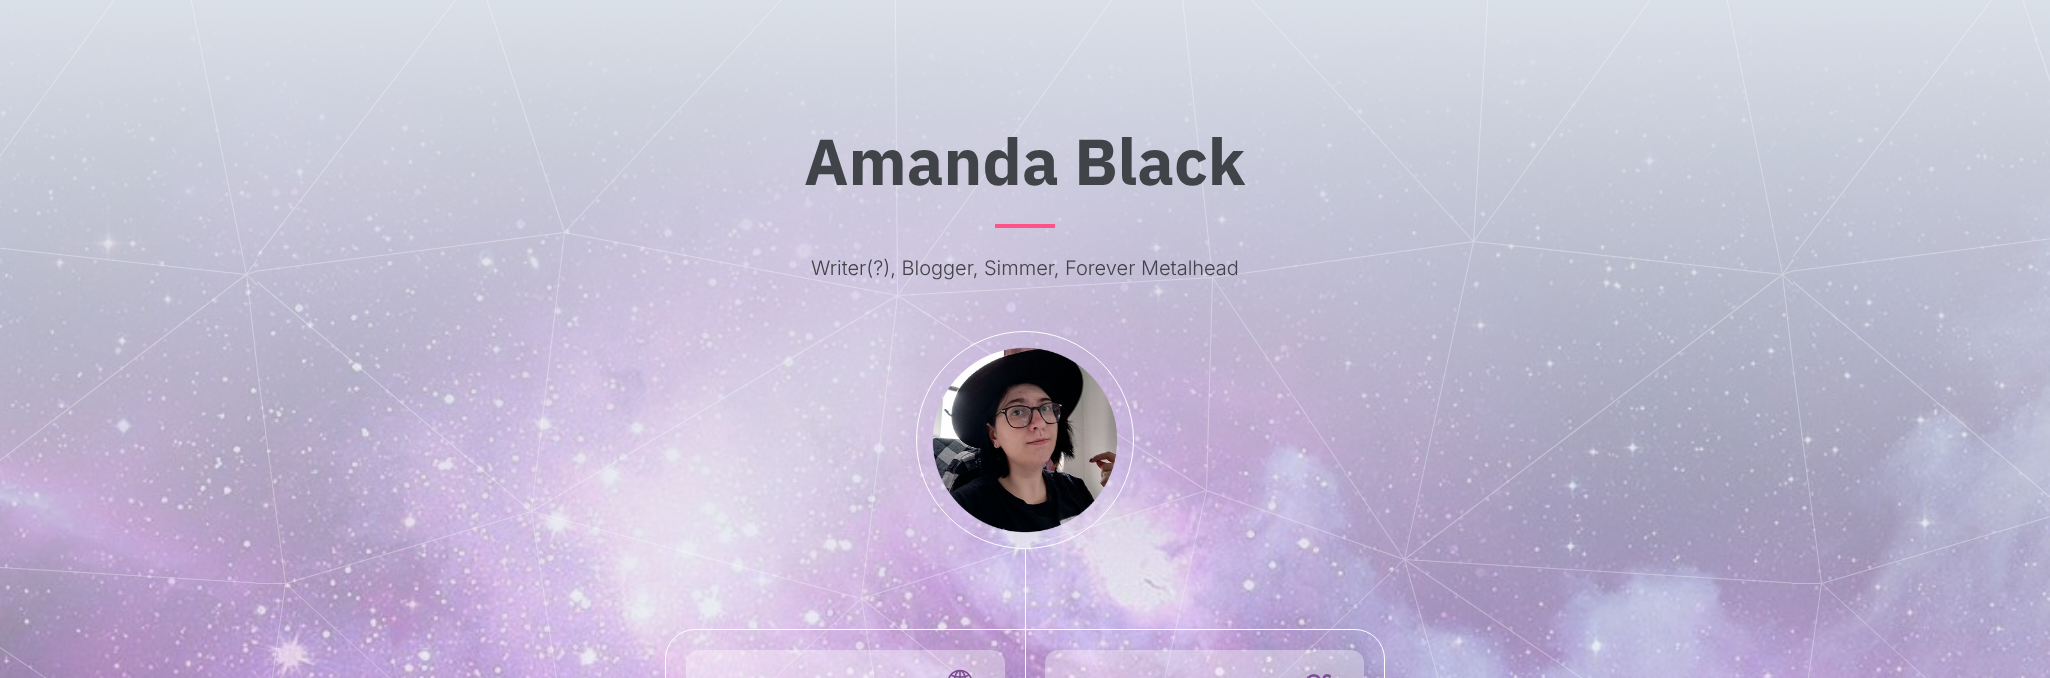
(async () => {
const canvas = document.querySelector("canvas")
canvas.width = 2050
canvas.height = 678
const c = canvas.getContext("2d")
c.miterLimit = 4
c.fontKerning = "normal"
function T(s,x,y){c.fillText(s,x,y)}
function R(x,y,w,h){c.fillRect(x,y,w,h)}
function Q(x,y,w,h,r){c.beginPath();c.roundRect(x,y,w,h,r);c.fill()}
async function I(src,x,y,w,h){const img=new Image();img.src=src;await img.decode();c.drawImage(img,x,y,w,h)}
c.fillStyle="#fff"
R(0,0,2050,678)
await I("1.png",0,0,2050,678)
c.font="bold 65px IBM Plex Sans"
c.fillStyle="#404347"
T("Amanda Black",804,185)
c.fillStyle="#ff5286"
R(995,224,60,4)
c.font="300 20px Inter"
c.fillStyle="#404347"
T("Writer(?), Blogger, Simmer, Forever Metalhead",811,275)
c.beginPath()
c.arc(1025,440,108.5,0,7)
c.strokeStyle="#fff"
c.stroke()
await I("2.png",932,347,186,186)
c.fillStyle="#fff"
R(1025,549,1,80)
c.beginPath()
c.roundRect(665.5,629.5,719,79,29.5)
c.stroke()
c.fillStyle="#ffffff5e"
Q(686,650,319,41,13)
await I("3.png",948,669,24,9)
c.fillStyle="#fff"
R(1025,630,1,48)
c.fillStyle="#ffffff5e"
Q(1045,650,319,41,13)
await I("4.png",1306,674,26,4)
})()
